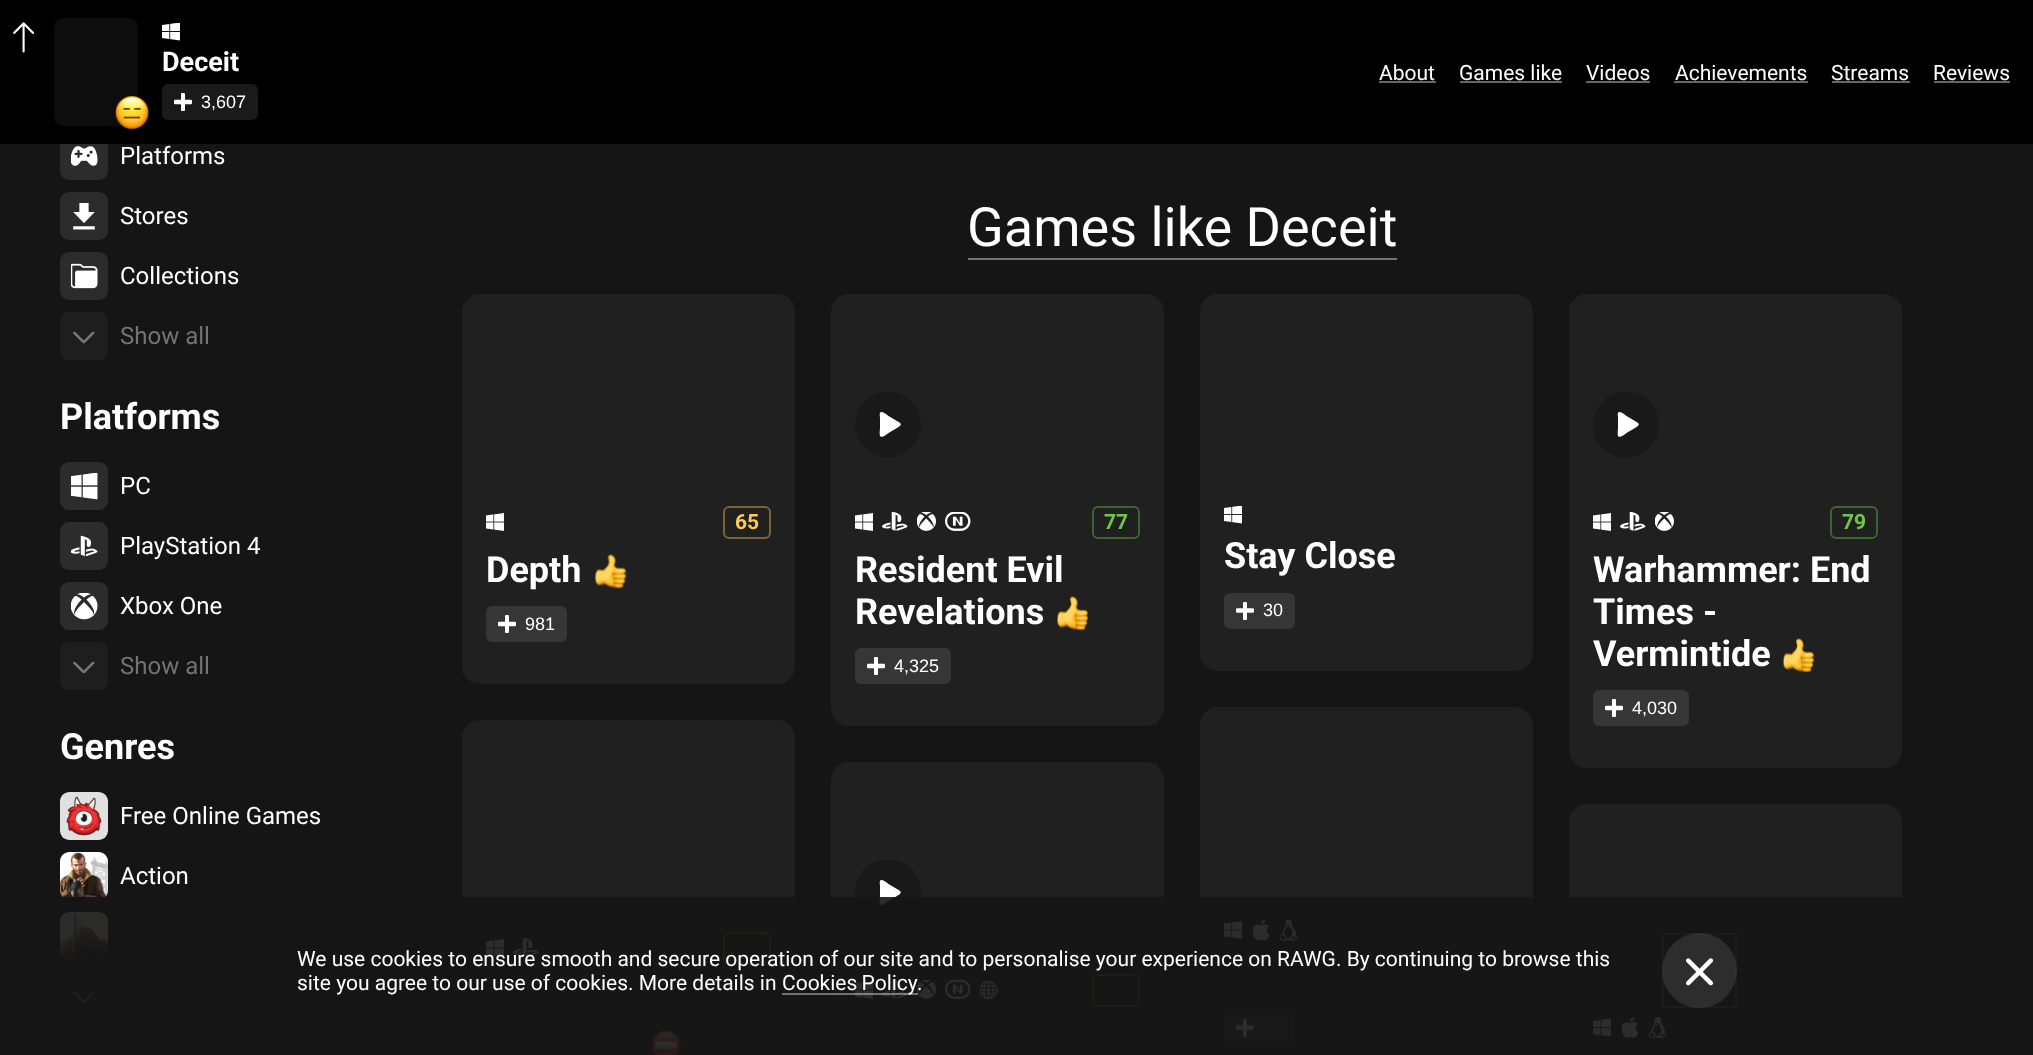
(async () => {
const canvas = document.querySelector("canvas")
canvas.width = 2033
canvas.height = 1055
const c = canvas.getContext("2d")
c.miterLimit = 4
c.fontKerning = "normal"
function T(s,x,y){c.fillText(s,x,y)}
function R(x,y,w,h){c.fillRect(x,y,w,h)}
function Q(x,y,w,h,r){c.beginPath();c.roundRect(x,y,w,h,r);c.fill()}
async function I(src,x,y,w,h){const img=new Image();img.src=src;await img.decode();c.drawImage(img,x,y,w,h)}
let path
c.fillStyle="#151515"
R(0,0,2033,1055)
c.fillStyle="#2c2c2c"
Q(60,132,48,48,9)
c.fillStyle="#000"
R(0,0,2033,144)
c.fillStyle="#0d0d0d"
Q(54,18,84,108,9)
await I("1.png",115,95,34,35)
await I("2.png",162,23,18,18)
await I("3.png",13,22,21,31)
c.font="bold 27px Roboto"
c.fillStyle="#fff"
T("Deceit",162,71)
c.fillStyle="#1a1a1a"
Q(162,84,96,36,6)
await I("4.png",174,93,18,18)
c.font="18px Liberation Sans"
c.fillStyle="#fff"
T("3,607",201,108)
c.font="21px Roboto"
T("About",1379,80)
c.fillStyle="#666"
R(1379,81,57,2)
c.fillStyle="#fff"
T("Games like",1459,80)
c.fillStyle="#666"
R(1460,81,102,2)
c.fillStyle="#fff"
T("Videos",1586,80)
c.fillStyle="#666"
R(1586,81,64,2)
c.fillStyle="#fff"
T("Achievements",1675,80)
c.fillStyle="#666"
R(1674,81,134,2)
c.fillStyle="#fff"
T("Streams",1831,80)
c.fillStyle="#666"
R(1832,81,78,2)
c.fillStyle="#fff"
T("Reviews",1933,80)
c.fillStyle="#666"
R(1934,81,76,2)
await I("5.png",71,146,27,20)
c.font="24px Roboto"
c.fillStyle="#fff"
T("Platforms",120,164)
c.fillStyle="#2c2c2c"
Q(60,192,48,48,9)
await I("6.png",73,203,22,27)
c.fillStyle="#fff"
T("Stores",120,224)
c.fillStyle="#2c2c2c"
Q(60,252,48,48,9)
await I("7.png",71,263,27,26)
c.fillStyle="#fff"
T("Collections",120,284)
c.fillStyle="#1e1e1e"
Q(60,312,48,48,9)
await I("8.png",73,331,22,13)
c.fillStyle="#737373"
T("Show all",120,344)
c.font="bold 36px Roboto"
c.fillStyle="#fff"
T("Platforms",60,429)
c.fillStyle="#2c2c2c"
Q(60,462,48,48,9)
await I("9.png",71,473,27,27)
c.font="24px Roboto"
c.fillStyle="#fff"
T("PC",120,494)
c.fillStyle="#2c2c2c"
Q(60,522,48,48,9)
await I("10.png",71,535,27,22)
c.fillStyle="#fff"
T("PlayStation 4",120,554)
c.fillStyle="#2c2c2c"
Q(60,582,48,48,9)
await I("11.png",71,593,27,27)
c.fillStyle="#fff"
T("Xbox One",120,614)
c.fillStyle="#1e1e1e"
Q(60,642,48,48,9)
await I("8.png",73,661,22,13)
c.fillStyle="#737373"
T("Show all",120,674)
c.font="bold 36px Roboto"
c.fillStyle="#fff"
T("Genres",60,759)
await I("12.png",60,792,48,48)
c.font="24px Roboto"
T("Free Online Games",120,824)
await I("13.png",60,852,48,48)
T("Action",120,884)
await I("14.png",60,912,48,48)
c.fillStyle="#1e1e1e"
Q(60,972,48,48,9)
await I("8.png",73,991,22,13)
c.font="54px Roboto"
c.fillStyle="#fff"
T("Games like Deceit",967,246)
c.fillStyle="#737373"
R(968,258,429,2)
c.fillStyle="#202020"
Q(462,294,333,390,18)
await I("15.png",486,513,18,18)
c.beginPath()
c.roundRect(724,507,46,31,5)
c.strokeStyle="#786434"
c.lineWidth=2
c.stroke()
c.font="bold 21px Roboto"
c.fillStyle="#fdca52"
T("65",735,529)
c.font="bold 36px Roboto"
c.fillStyle="#fff"
T("Depth",486,582)
await I("16.png",594,554,33,35)
c.fillStyle="#363636"
Q(486,606,81,36,6)
await I("17.png",498,615,18,18)
c.font="18px Liberation Sans"
c.fillStyle="#fff"
T("981",525,630)
c.fillStyle="#202020"
Q(462,720,333,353,18)
await I("15.png",486,939,18,18)
await I("18.png",513,938,26,19)
c.beginPath()
c.roundRect(724,933,46,31,5)
c.stroke()
await I("19.png",650,1029,32,26)
Q(831,294,333,432,18)
c.save()
c.beginPath()
c.rect(855,392,66,66)
c.clip()
c.fillStyle="#191919"
c.beginPath()
c.arc(888,424.5,33,0,7)
c.fill()
c.restore()
c.fillStyle="#fff"
path = new Path2D("M899.5 422.5l-11-6.5c-2-1.5-5-4.5-7.5-4c-2 .5-1 4.5-1 5.5v10.5c0 1-1 8 .5 8.5c2.5 1.5 6.5-2.5 8-3.5l8.5-5c1.5-1 6-3 2.5-5.5z")
c.fill(path)
await I("15.png",855,513,18,18)
await I("18.png",882,512,26,19)
await I("20.png",917,512,19,19)
await I("21.png",945,512,26,19)
c.beginPath()
c.roundRect(1093,507,46,31,5)
c.strokeStyle="#3f6330"
c.stroke()
c.font="bold 21px Roboto"
c.fillStyle="#6dc849"
T("77",1104,529)
c.font="bold 36px Roboto"
c.fillStyle="#fff"
T("Resident Evil",855,582)
T("Revelations",855,624)
await I("22.png",1057,596,32,34)
c.fillStyle="#363636"
Q(855,648,96,36,6)
await I("17.png",867,657,18,18)
c.font="18px Liberation Sans"
c.fillStyle="#fff"
T("4,325",894,672)
c.fillStyle="#202020"
Q(831,762,333,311,18)
c.save()
c.beginPath()
c.rect(855,860,66,66)
c.clip()
c.fillStyle="#191919"
c.beginPath()
c.arc(888,892.5,33,0,7)
c.fill()
c.restore()
c.fillStyle="#fff"
path = new Path2D("M899.5 890.5l-11-6.5c-2-1.5-5-4.5-7.5-4c-2 .5-1 4.5-1 5.5v10.5c0 1-1 8 .5 8.5c2.5 1.5 6.5-2.5 8-3.5l8.5-5c1.5-1 6-3 2.5-5.5z")
c.fill(path)
await I("15.png",855,981,18,18)
await I("18.png",882,980,26,19)
await I("20.png",917,980,19,19)
await I("21.png",945,980,26,19)
await I("23.png",980,981,18,18)
c.beginPath()
c.roundRect(1093,975,46,31,5)
c.strokeStyle="#786434"
c.stroke()
c.fillStyle="#202020"
Q(1200,294,333,377,18)
await I("24.png",1224,506,18,18)
c.font="bold 36px Roboto"
c.fillStyle="#fff"
T("Stay Close",1224,568)
c.fillStyle="#363636"
Q(1224,593,71,36,6)
await I("25.png",1236,602,18,18)
c.font="18px Liberation Sans"
c.fillStyle="#fff"
T("30",1263,616)
c.fillStyle="#202020"
Q(1200,707,333,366,18)
await I("15.png",1224,921,18,18)
await I("26.png",1253,920,16,21)
await I("27.png",1280,920,18,21)
c.fillStyle="#363636"
Q(1224,1010,71,36,6)
await I("25.png",1236,1019,18,18)
c.fillStyle="#202020"
Q(1569,294,333,474,18)
c.save()
c.beginPath()
c.rect(1593,392,66,66)
c.clip()
c.fillStyle="#191919"
c.beginPath()
c.arc(1626,424.5,33,0,7)
c.fill()
c.restore()
c.fillStyle="#fff"
path = new Path2D("M1637.5 422.5l-11-6.5c-2-1.5-5-4.5-7.5-4c-2 .5-1 4.5-1 5.5v10.5c0 1-1 8 .5 8.5c2.5 1.5 6.5-2.5 8-3.5l8.5-5c1.5-1 6-3 2.5-5.5z")
c.fill(path)
await I("15.png",1593,513,18,18)
await I("18.png",1620,512,26,19)
await I("20.png",1655,512,19,19)
c.beginPath()
c.roundRect(1831,507,46,31,5)
c.strokeStyle="#3f6330"
c.stroke()
c.font="bold 21px Roboto"
c.fillStyle="#6dc849"
T("79",1842,529)
c.font="bold 36px Roboto"
c.fillStyle="#fff"
T("Warhammer: End",1593,582)
T("Times -",1593,624)
T("Vermintide",1593,666)
await I("22.png",1783,638,32,34)
c.fillStyle="#363636"
Q(1593,690,96,36,6)
await I("17.png",1605,699,18,18)
c.font="18px Liberation Sans"
c.fillStyle="#fff"
T("4,030",1632,714)
c.fillStyle="#202020"
Q(1569,804,333,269,18)
await I("24.png",1593,1019,18,18)
await I("28.png",1622,1017,16,21)
await I("29.png",1649,1017,18,21)
c.fillStyle="#151515e6"
R(60,897,1842,158)
c.font="21px Roboto"
c.fillStyle="#fff"
T("We use cookies to ensure smooth and secure operation of our site and to personalise your experience on RAWG. By continuing to browse this",297,966)
T("site you agree to our use of cookies. More details in",297,990)
c.fillStyle="#ffffff66"
R(782,993,136,2)
c.wordSpacing="-1px"
c.fillStyle="#fff"
T("Cookies Policy",782,990)
c.wordSpacing="0px"
T(".",917,990)
c.fillStyle="#2d2d2d"
c.beginPath()
c.arc(1699.5,970.5,37.5,0,7)
c.fill()
c.strokeStyle="#9797970d"
c.strokeRect(1663,934,73,73)
await I("30.png",1686,958,27,28)
})()
